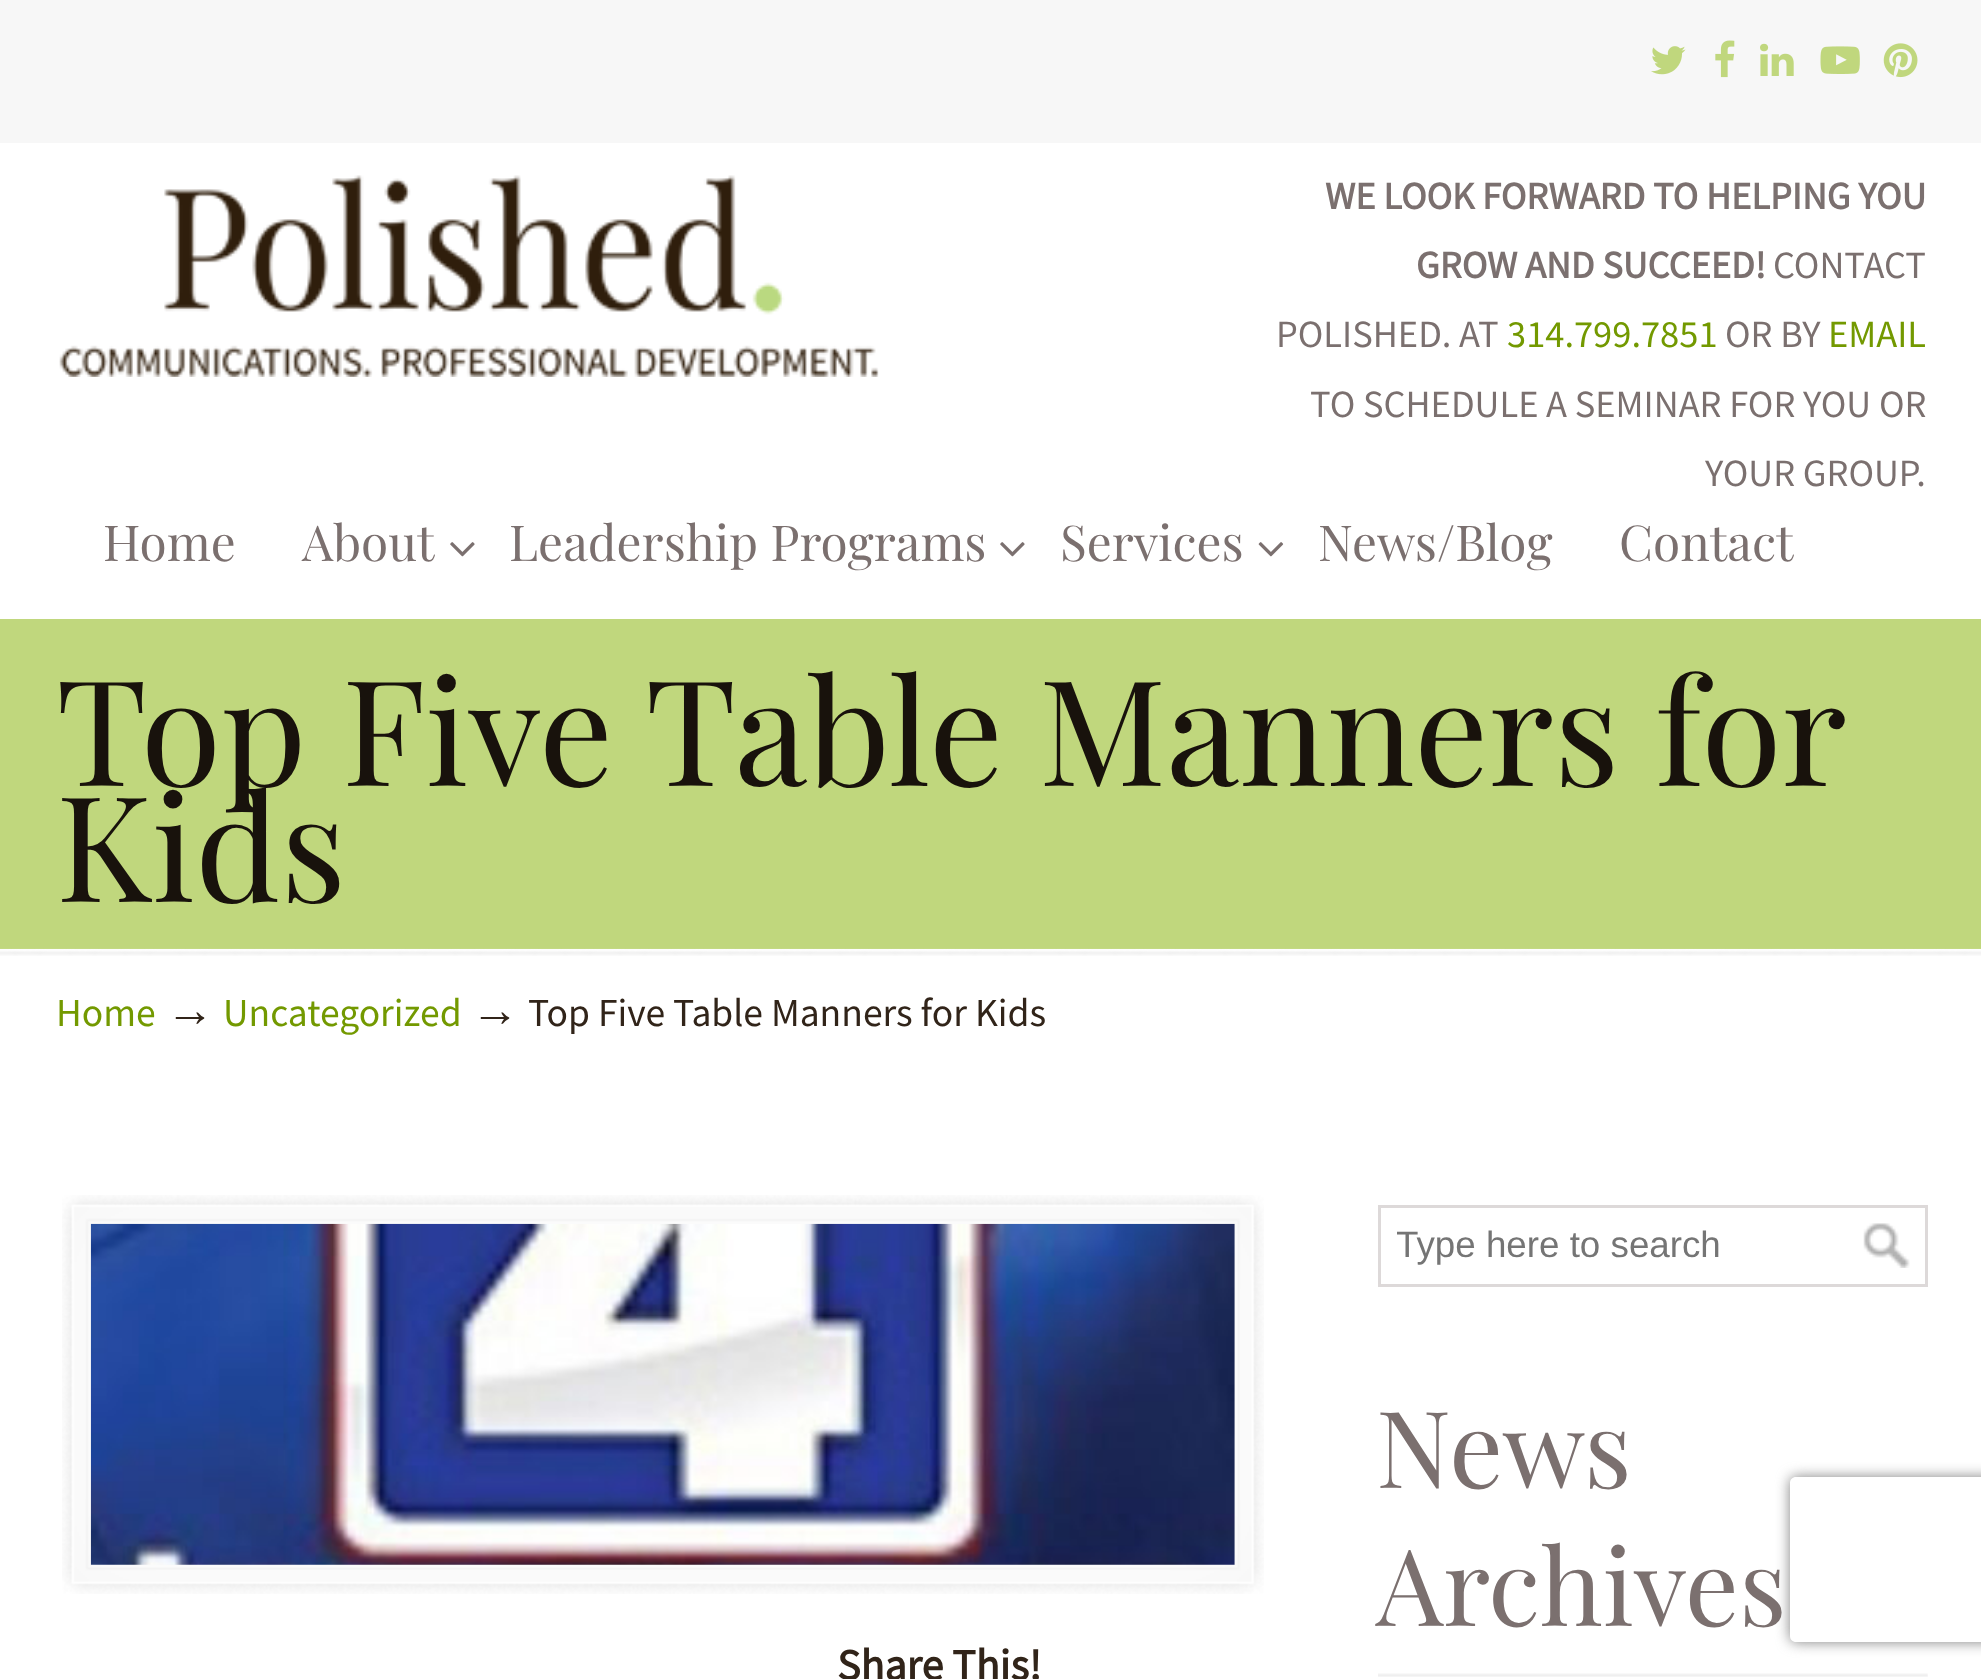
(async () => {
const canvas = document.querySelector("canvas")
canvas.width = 1981
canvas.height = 1679
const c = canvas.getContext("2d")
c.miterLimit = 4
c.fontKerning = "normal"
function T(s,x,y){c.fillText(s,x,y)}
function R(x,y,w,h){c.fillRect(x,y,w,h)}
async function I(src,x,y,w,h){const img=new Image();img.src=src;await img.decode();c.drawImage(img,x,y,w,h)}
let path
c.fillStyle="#c0d77d"
R(0,0,1981,1679)
c.fillStyle="#fff"
R(0,143,1981,476)
c.fillStyle="#f7f7f7"
R(0,0,1981,143)
await I("1.png",1651,46,35,29)
await I("2.png",1715,40,20,38)
await I("3.png",1760,43,34,33)
await I("4.png",1820,46,40,28)
await I("5.png",1883,43,35,35)
await I("6.png",59,175,820,202)
c.font="bold 38.5px Source Sans Pro"
c.fillStyle="#7b706f"
T("WE LOOK FORWARD TO HELPING YOU",1325,209)
T("GROW AND SUCCEED!",1416,278)
c.font="38.5px Source Sans Pro"
T("CONTACT",1773,278)
T("POLISHED. AT",1276,347)
c.fillStyle="#739900"
T("314.799.7851",1507,347)
c.fillStyle="#7b706f"
T("OR BY",1725,347)
c.fillStyle="#739900"
T("EMAIL",1828,347)
c.fillStyle="#7b706f"
T("TO SCHEDULE A SEMINAR FOR YOU OR",1310,417)
T("YOUR GROUP.",1705,486)
c.font="49.5px Playfair Display"
T("Home",103,561)
T("About",302,561)
await I("7.png",450,542,25,15)
T("Leadership Programs",509,561)
await I("7.png",1000,542,25,15)
T("Services",1060,561)
await I("8.png",1258,542,26,15)
T("News/Blog",1318,561)
T("Contact",1619,561)
c.wordSpacing="-1px"
c.font="146.75px Playfair Display"
c.fillStyle="#18120c"
T("Top Five Table Manners for",56,786)
c.wordSpacing="0px"
T("Kids",56,902)
c.fillStyle="#fff"
R(0,949,1981,730)
await I("9.png",0,948,1981,8)
c.font="39.6px Source Sans Pro"
c.fillStyle="#739900"
T("Home",56,1026)
c.font="48px Liberation Serif"
c.fillStyle="#312419"
T("→",166,1026)
c.font="39.6px Source Sans Pro"
c.fillStyle="#739900"
T("Uncategorized",223,1026)
c.font="48px Liberation Serif"
c.fillStyle="#312419"
T("→",471,1026)
c.font="39.6px Source Sans Pro"
T("Top Five Table Manners for Kids",528,1026)
c.strokeStyle="#ddd9d9"
c.lineWidth=3
c.strokeRect(1379.5,1206.5,547,79)
c.save()
c.beginPath()
c.rect(1397,1224,512,41)
c.clip()
c.font="36.75px Liberation Sans"
c.fillStyle="#757575"
T("Type here to search",1396,1257)
c.restore()
await I("10.png",1863,1223,47,45)
await I("11.png",1378,1673,550,4)
c.font="106.5px Playfair Display"
c.fillStyle="#7b706f"
T("News",1376,1488)
T("Archives",1376,1626)
await I("12.png",62,1195,1202,399)
c.fillStyle="#f5f5f5"
R(91,1224,1144,341)
await I("13.png",90,1223,1145,342)
c.font="bold 44px Source Sans Pro"
c.fillStyle="#312419"
T("Share This!",837,1680)
c.save()
path = new Path2D("M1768 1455h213v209h-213zm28 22h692c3.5 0 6 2.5 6 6v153c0 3.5-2.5 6-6 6h-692c-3.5 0-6-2.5-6-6v-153c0-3.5 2.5-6 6-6z")
c.clip(path,"evenodd")
c.fillStyle="#808080"
c.filter="blur(7px)"
c.beginPath()
c.roundRect(1790,1477,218,165,6)
c.fill()
c.filter="none"
c.restore()
})()
